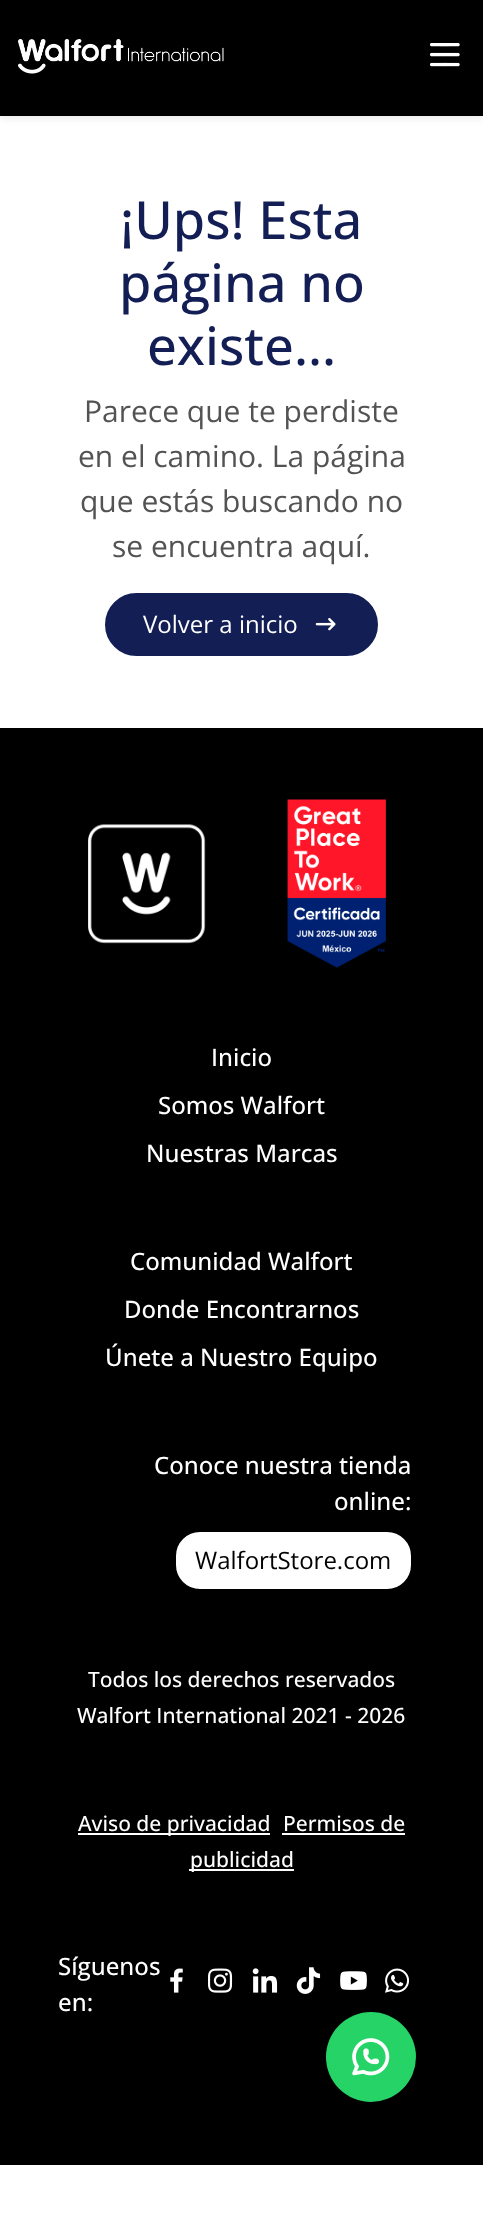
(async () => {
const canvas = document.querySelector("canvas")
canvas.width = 483
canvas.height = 2226
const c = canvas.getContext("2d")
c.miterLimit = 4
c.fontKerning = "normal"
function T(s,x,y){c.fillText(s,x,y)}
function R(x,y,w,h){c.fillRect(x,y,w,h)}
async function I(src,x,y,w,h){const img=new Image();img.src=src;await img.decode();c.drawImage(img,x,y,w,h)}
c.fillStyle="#fff"
R(0,0,483,2226)
c.fillStyle="#00000012"
c.filter="blur(3px)"
c.beginPath()
c.rect(0,3,483,116)
c.fill()
c.filter="none"
c.fillStyle="#000"
R(0,0,483,116)
await I("1.png",18,39,206,35)
await I("2.png",429,43,31,24)
c.font="500 52.5px Open Sans"
c.fillStyle="#121e54"
T("¡Ups! Esta",120,239)
T("página no",119,302)
T("existe...",147,365)
c.font="30px Open Sans"
c.fillStyle="#535353"
T("Parece que te perdiste",84,422)
T("en el camino. La página",78,467)
T("que estás buscando no",80,512)
T("se encuentra aquí.",112,557)
c.fillStyle="#121e54"
c.beginPath()
c.roundRect(106,594,271,61,30.5)
c.fill()
c.strokeStyle="#121e54"
c.lineWidth=2
c.stroke()
c.font="24px Open Sans"
c.fillStyle="#fff"
T("Volver a inicio",143,633)
await I("3.png",315,618,21,13)
c.fillStyle="#000"
R(0,728,483,1437)
await I("4.png",88,824,118,120)
await I("5.png",287,799,99,169)
c.font="500 24px Open Sans"
c.fillStyle="#fff"
T("Inicio",211,1066)
T("Somos Walfort",158,1114)
T("Nuestras Marcas",146,1162)
T("Comunidad Walfort",130,1270)
T("Donde Encontrarnos",124,1318)
T("Únete a Nuestro Equipo",105,1366)
T("Conoce nuestra tienda",154,1474)
T("online:",334,1510)
c.beginPath()
c.roundRect(177,1533,233,55,23)
c.fill()
c.strokeStyle="#fff"
c.stroke()
c.font="24px Open Sans"
c.fillStyle="#000"
T("WalfortStore.com",195,1569)
c.font="500 21px Open Sans"
c.fillStyle="#fff"
T("Todos los derechos reservados",88,1687)
T("Walfort International 2021 - 2026",77,1723)
R(78,1833,192,2)
T("Aviso de privacidad",78,1831)
T("Permisos de",283,1831)
R(282,1833,123,2)
R(189,1869,105,2)
T("publicidad",190,1867)
c.font="500 24px Open Sans"
T("Síguenos",58,1975)
T("en:",58,2011)
await I("6.png",170,1968,13,25)
await I("7.png",208,1968,25,25)
await I("8.png",252,1968,26,25)
await I("9.png",296,1967,25,27)
await I("10.png",340,1971,27,19)
await I("11.png",385,1968,25,25)
c.fillStyle="#25d366"
c.beginPath()
c.arc(371,2057,45,0,7)
c.fill()
await I("12.png",352,2038,38,38)
})()
